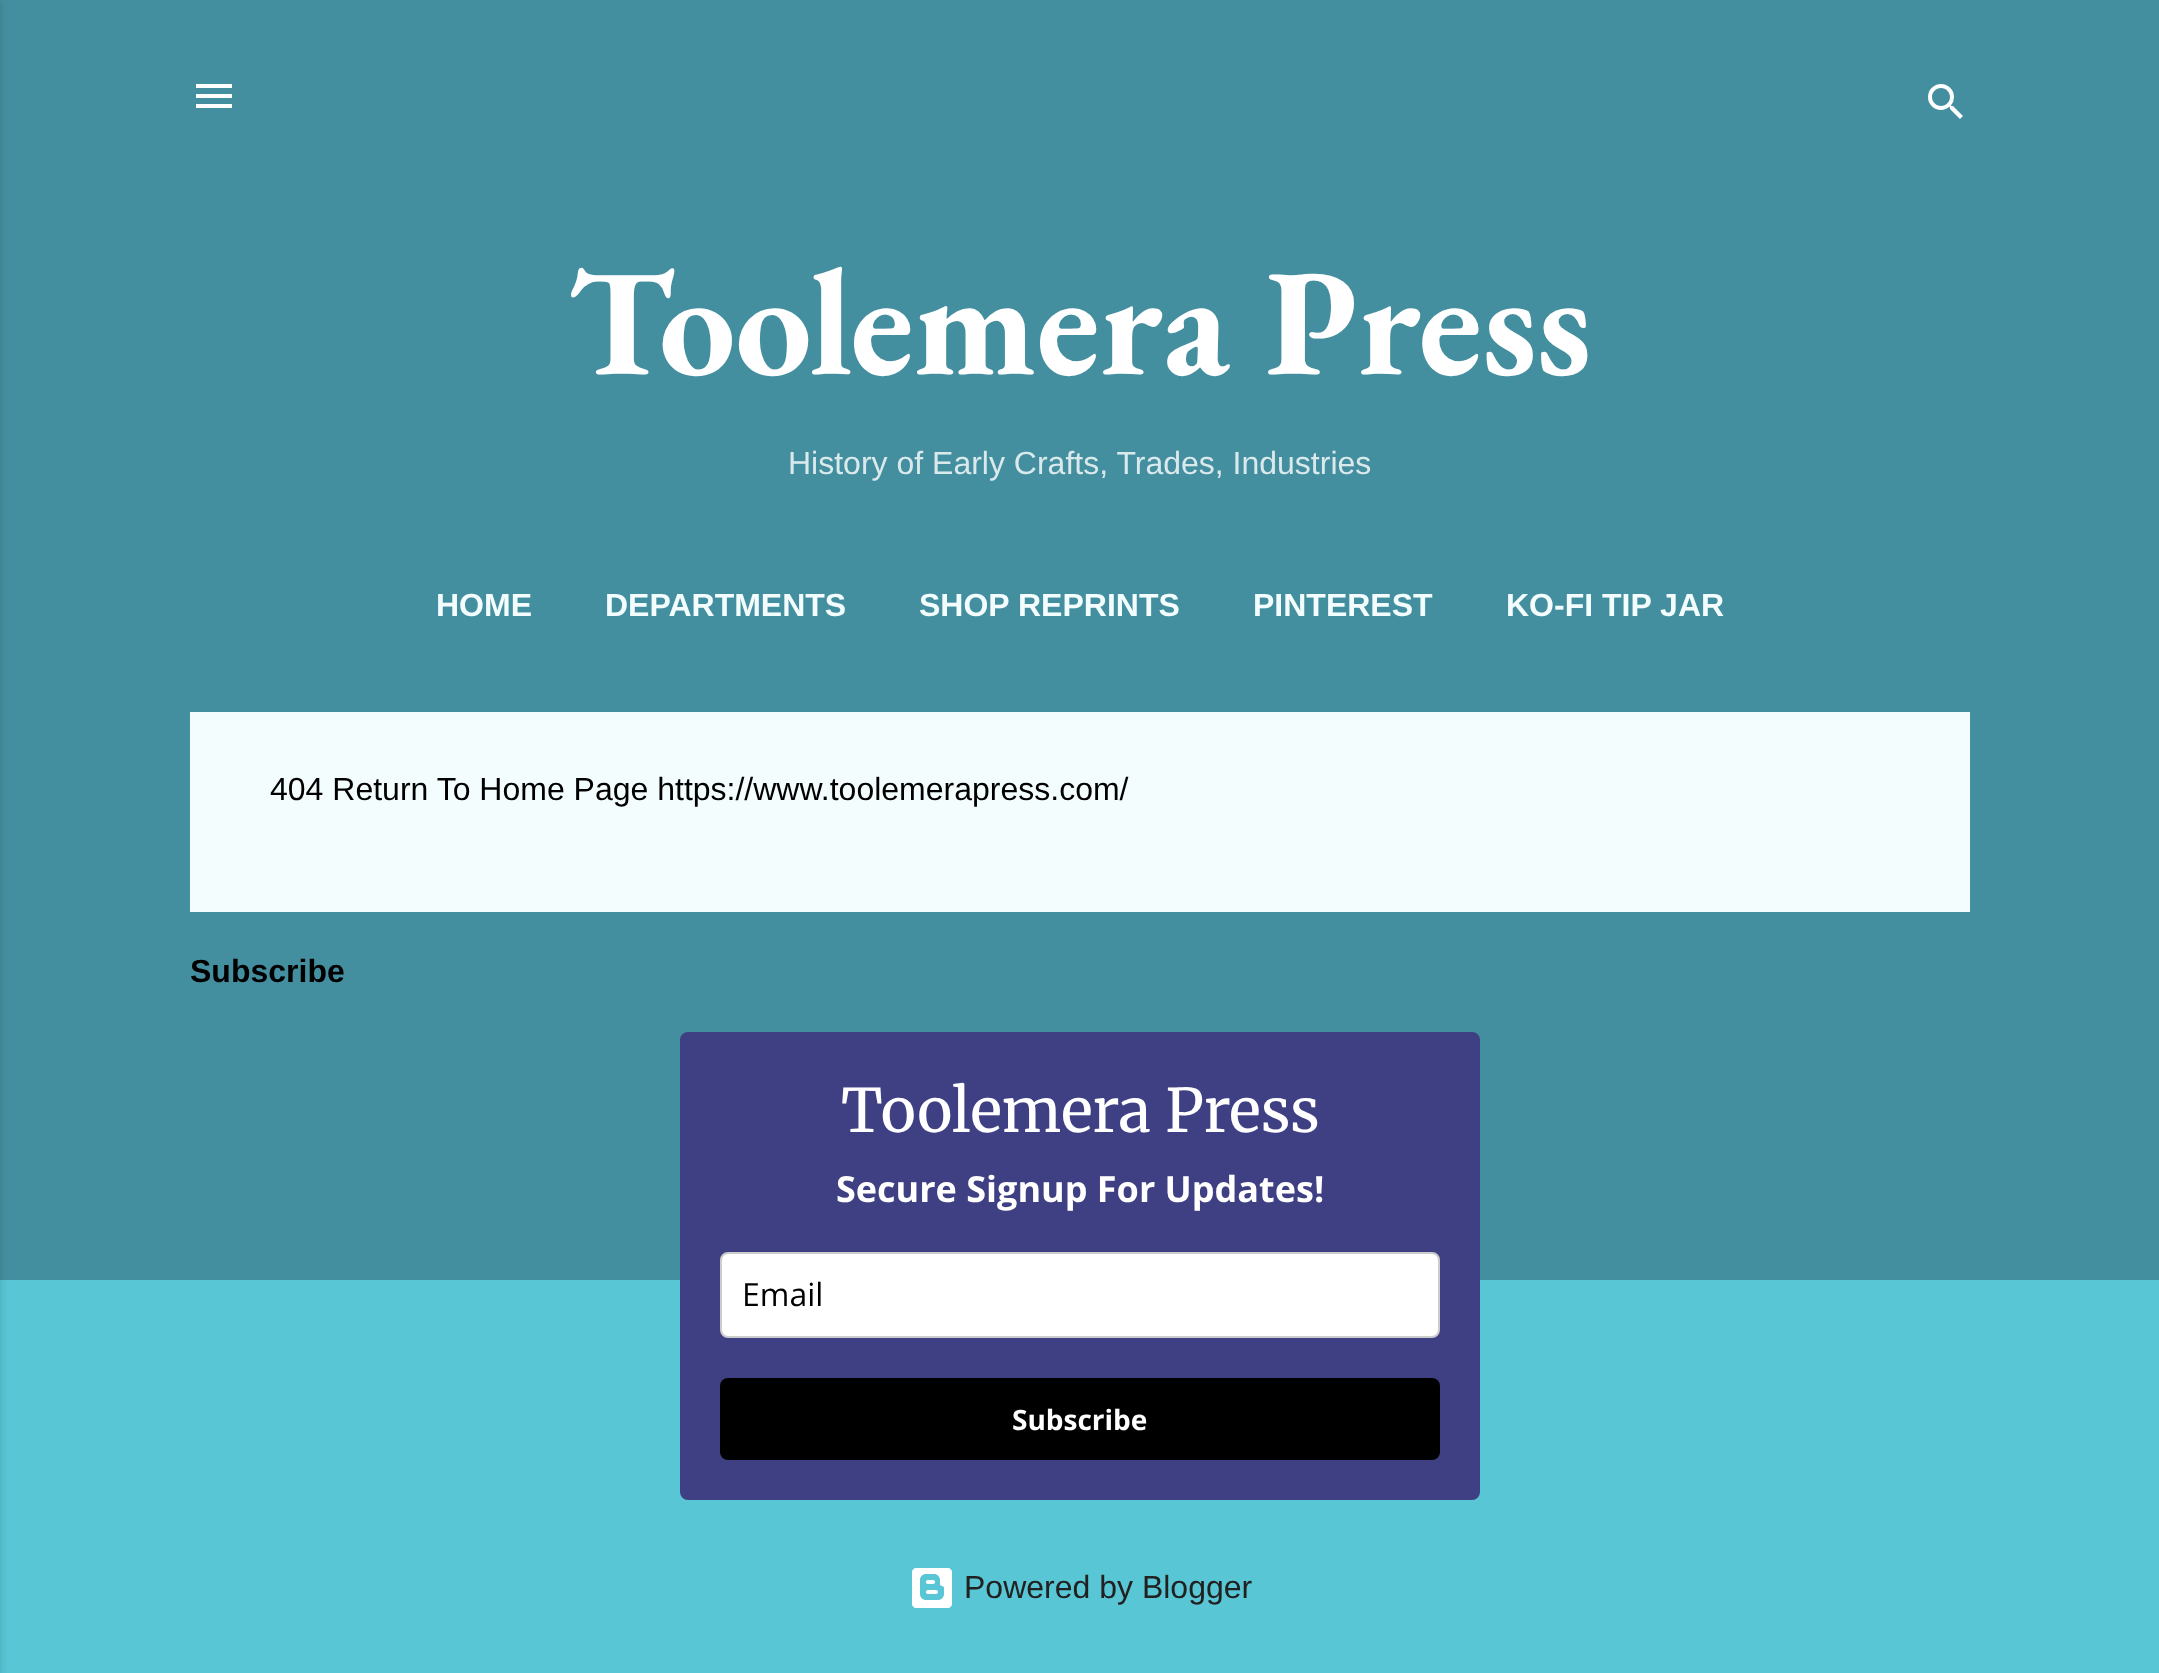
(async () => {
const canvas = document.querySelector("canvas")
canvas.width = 2159
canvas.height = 1673
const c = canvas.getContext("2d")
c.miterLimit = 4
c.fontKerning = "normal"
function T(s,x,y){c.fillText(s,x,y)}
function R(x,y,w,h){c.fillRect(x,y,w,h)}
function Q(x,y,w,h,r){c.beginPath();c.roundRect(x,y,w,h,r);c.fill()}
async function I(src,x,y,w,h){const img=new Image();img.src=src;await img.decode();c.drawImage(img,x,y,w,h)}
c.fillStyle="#58c6d5"
R(0,0,2159,1673)
c.fillStyle="#448f9f"
R(0,0,2159,1280)
c.fillStyle="#0000001a"
c.filter="blur(3px)"
c.beginPath()
c.rect(-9,2,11,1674)
c.fill()
c.filter="none"
await I("1.png",196,84,36,24)
await I("2.png",1928,84,35,35)
c.font="bold 152px EB Garamond"
c.fillStyle="#fff"
T("Toolemera Press",568,374)
c.font="32px Liberation Sans"
c.fillStyle="#dae9ec"
T("History of Early Crafts, Trades, Industries",788,474)
c.font="bold 32px Liberation Sans"
c.fillStyle="#f3fdfe"
T("HOME",436,616)
T("DEPARTMENTS",605,616)
T("SHOP REPRINTS",919,616)
T("PINTEREST",1253,616)
T("KO-FI TIP JAR",1506,616)
R(190,712,1780,200)
c.font="32px Liberation Sans"
c.fillStyle="#000"
T("404 Return To Home Page https://www.toolemerapress.com/",270,800)
c.font="bold 32px Liberation Sans"
T("Subscribe",190,982)
c.fillStyle="#3f3f83"
Q(680,1032,800,468,8)
c.font="60px Merriweather"
c.fillStyle="#fff"
T("Toolemera Press",841,1132)
c.font="bold 36px Open Sans"
T("Secure Signup For Updates!",836,1202)
c.beginPath()
c.roundRect(721,1253,718,84,7)
c.fill()
c.strokeStyle="#ccc"
c.lineWidth=2
c.stroke()
c.font="32px Open Sans"
c.fillStyle="#000"
T("Email",742,1306)
Q(720,1378,720,82,8)
c.font="bold 28px Open Sans"
c.fillStyle="#fff"
T("Subscribe",1012,1430)
await I("3.png",912,1568,40,40)
c.font="32px Liberation Sans"
c.fillStyle="#212121"
T("Powered by Blogger",964,1598)
})()
